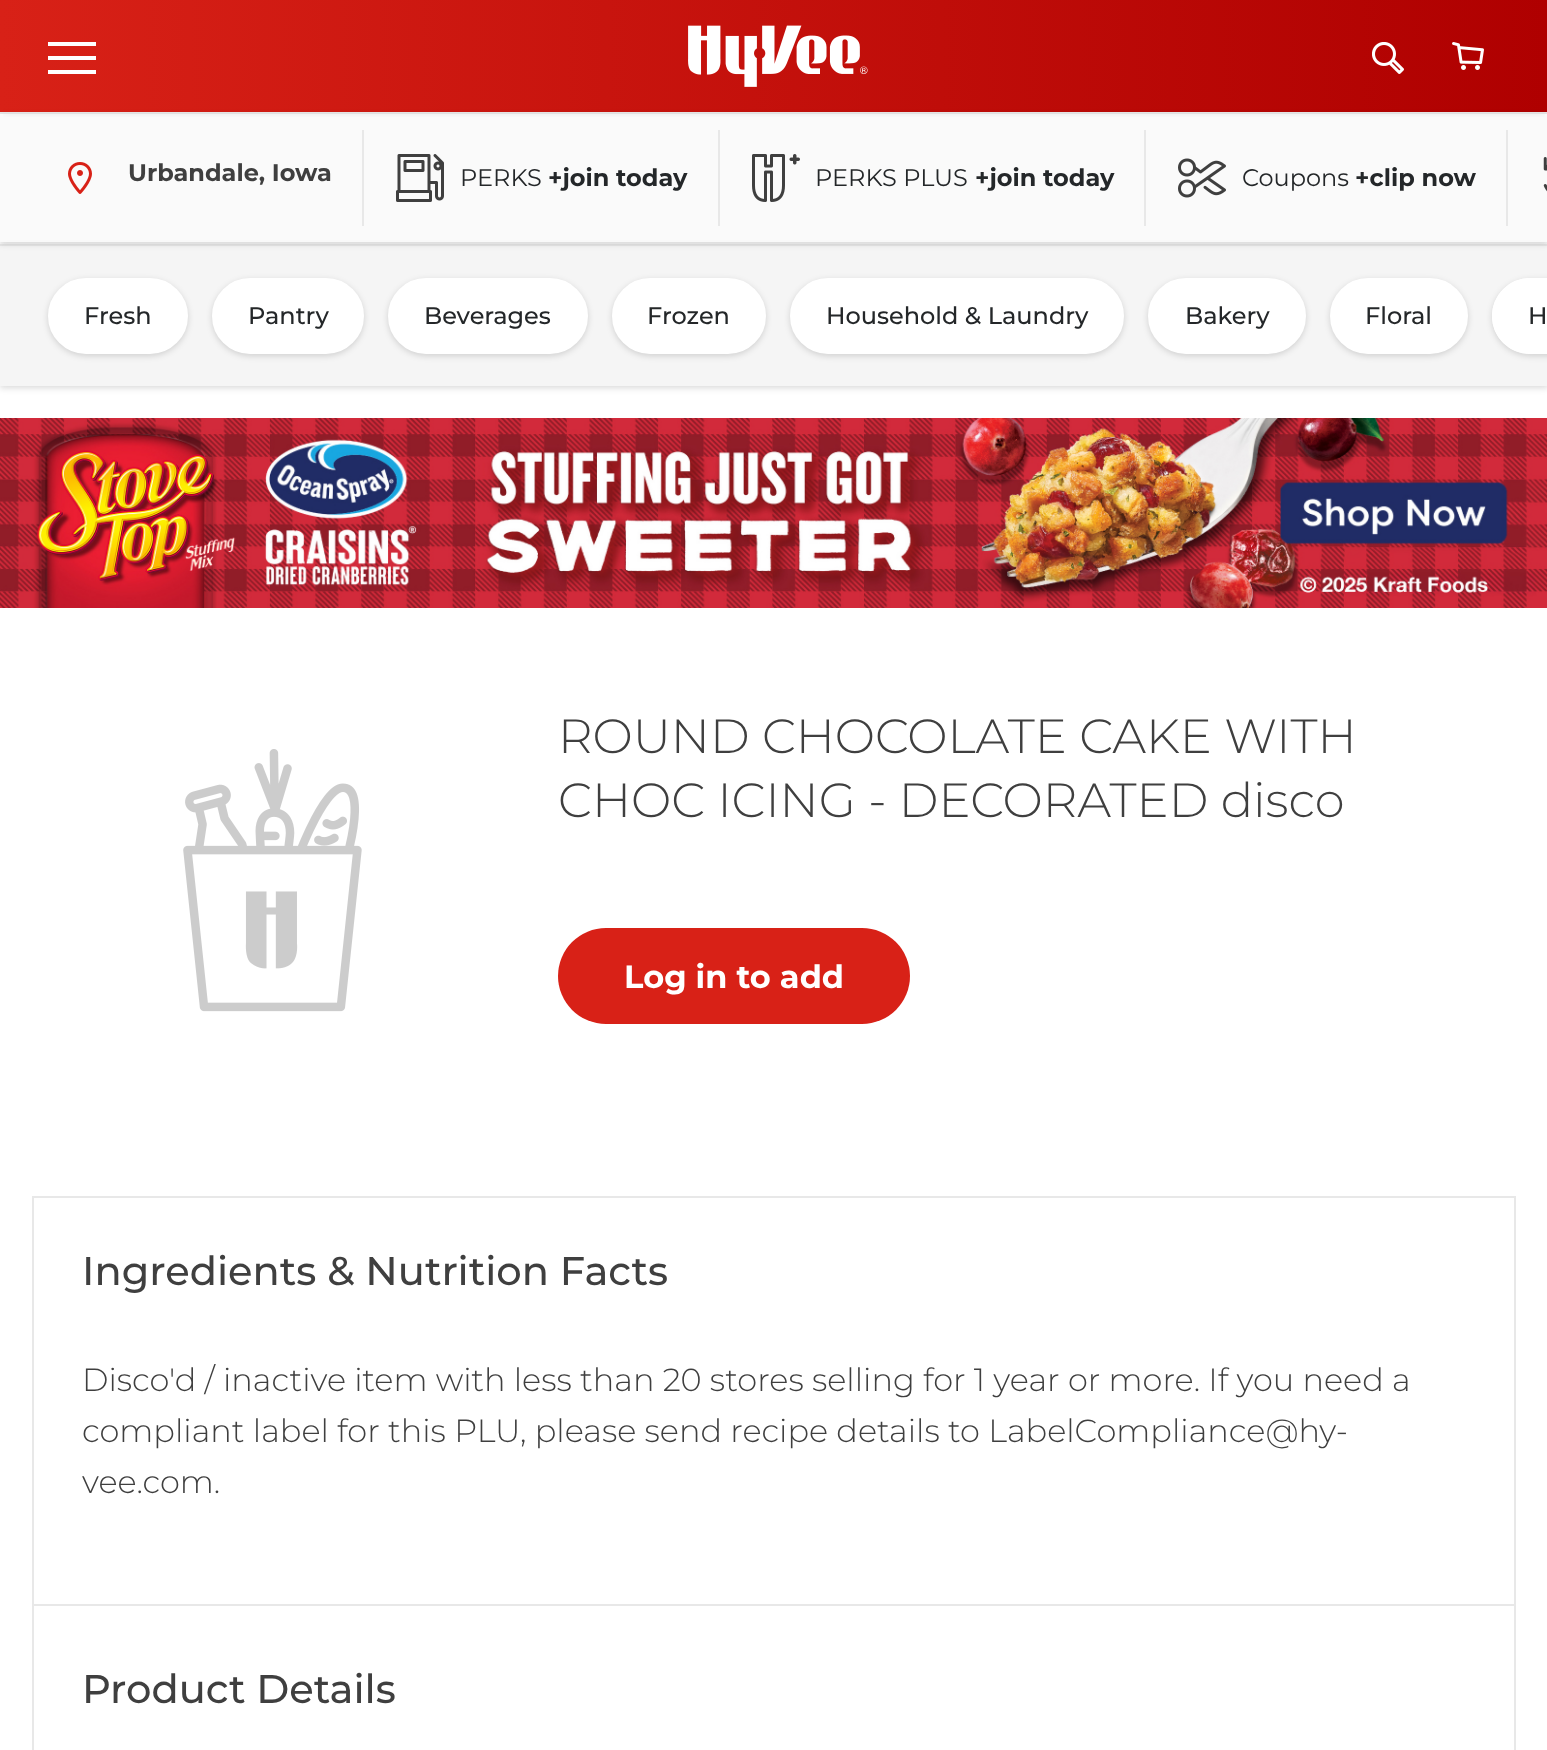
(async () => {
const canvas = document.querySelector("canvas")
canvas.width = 1547
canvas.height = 1750
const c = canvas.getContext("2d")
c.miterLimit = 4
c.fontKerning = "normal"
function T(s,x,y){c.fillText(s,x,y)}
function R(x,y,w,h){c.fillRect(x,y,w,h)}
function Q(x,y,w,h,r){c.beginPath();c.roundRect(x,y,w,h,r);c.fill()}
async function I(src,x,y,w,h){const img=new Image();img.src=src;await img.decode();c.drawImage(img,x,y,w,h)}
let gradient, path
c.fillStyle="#fff"
R(0,0,1547,1750)
gradient = c.createLinearGradient(0,56,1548,56)
gradient.addColorStop(0,"#d82117")
gradient.addColorStop(1,"#af0000")
c.fillStyle = gradient
R(0,0,1547,112)
c.save()
c.beginPath()
c.rect(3,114,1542,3)
c.clip()
c.fillStyle="#00000033"
c.filter="blur(4px)"
c.beginPath()
c.rect(4,8,1540,104)
c.fill()
c.filter="none"
c.restore()
c.fillStyle="#fff"
R(48,56,48,4)
R(48,42,48,4)
R(48,70,48,4)
await I("1.png",688,25,180,62)
await I("2.png",1372,42,32,32)
await I("3.png",1452,42,32,28)
c.fillStyle="#e8e8e8"
R(0,112,1547,2)
c.fillStyle="#00000026"
c.filter="blur(3px)"
c.beginPath()
c.rect(0,246,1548,142)
c.fill()
c.filter="none"
c.fillStyle="#f5f5f5"
R(0,246,1547,140)
c.fillStyle="#e8e8e8"
R(0,244,1547,2)
c.save()
path = new Path2D("M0 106h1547v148h-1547zm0 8h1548v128h-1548z")
c.clip(path,"evenodd")
c.fillStyle="#00000026"
c.filter="blur(3px)"
c.beginPath()
c.rect(0,116,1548,128)
c.fill()
c.filter="none"
c.restore()
c.fillStyle="#f5f5f580"
R(0,114,1547,128)
await I("4.png",68,162,24,32)
c.font="bold 24px Montserrat"
c.fillStyle="#3f3f3f"
T("Urbandale, Iowa",128,181)
c.fillStyle="#e8e8e8"
R(362,130,2,96)
await I("5.png",396,154,48,48)
c.font="24px Montserrat"
c.fillStyle="#242729"
T("PERKS",460,186)
c.font="bold 24px Montserrat"
T("+join today",548,186)
c.fillStyle="#e8e8e8"
R(718,130,2,96)
await I("6.png",752,154,48,48)
c.font="24px Montserrat"
c.fillStyle="#242729"
T("PERKS PLUS",815,186)
c.font="bold 24px Montserrat"
T("+join today",975,186)
c.fillStyle="#e8e8e8"
R(1144,130,2,96)
await I("7.png",1178,158,48,40)
c.font="24px Montserrat"
c.fillStyle="#242729"
T("Coupons",1242,186)
c.font="bold 24px Montserrat"
T("+clip now",1355,186)
c.fillStyle="#e8e8e8"
R(1506,130,2,96)
await I("8.png",1543,157,4,35)
c.fillStyle="#00000026"
c.filter="blur(3px)"
c.beginPath()
c.roundRect(48,280,140,76,38)
c.fill()
c.filter="none"
c.fillStyle="#fff"
c.beginPath()
c.roundRect(50,280,136,72,36)
c.fill()
c.strokeStyle="#fff"
c.lineWidth=4
c.stroke()
c.font="500 24px Montserrat"
c.fillStyle="#242729"
T("Fresh",84,324)
c.fillStyle="#00000026"
c.filter="blur(3px)"
c.beginPath()
c.roundRect(212,280,152,76,38)
c.fill()
c.filter="none"
c.fillStyle="#fff"
c.beginPath()
c.roundRect(214,280,148,72,36)
c.fill()
c.stroke()
c.fillStyle="#242729"
T("Pantry",248,324)
c.fillStyle="#00000026"
c.filter="blur(3px)"
c.beginPath()
c.roundRect(388,280,200,76,38)
c.fill()
c.filter="none"
c.fillStyle="#fff"
c.beginPath()
c.roundRect(390,280,196,72,36)
c.fill()
c.stroke()
c.fillStyle="#242729"
T("Beverages",424,324)
c.fillStyle="#00000026"
c.filter="blur(3px)"
c.beginPath()
c.roundRect(612,280,154,76,38)
c.fill()
c.filter="none"
c.fillStyle="#fff"
c.beginPath()
c.roundRect(614,280,150,72,36)
c.fill()
c.stroke()
c.fillStyle="#242729"
T("Frozen",647,324)
c.fillStyle="#00000026"
c.filter="blur(3px)"
c.beginPath()
c.roundRect(790,280,334,76,38)
c.fill()
c.filter="none"
c.fillStyle="#fff"
c.beginPath()
c.roundRect(792,280,330,72,36)
c.fill()
c.stroke()
c.fillStyle="#242729"
T("Household & Laundry",826,324)
c.fillStyle="#00000026"
c.filter="blur(3px)"
c.beginPath()
c.roundRect(1148,280,158,76,38)
c.fill()
c.filter="none"
c.fillStyle="#fff"
c.beginPath()
c.roundRect(1150,280,154,72,36)
c.fill()
c.stroke()
c.fillStyle="#242729"
T("Bakery",1185,324)
c.fillStyle="#00000026"
c.filter="blur(3px)"
c.beginPath()
c.roundRect(1330,280,138,76,38)
c.fill()
c.filter="none"
c.fillStyle="#fff"
c.beginPath()
c.roundRect(1332,280,134,72,36)
c.fill()
c.stroke()
c.fillStyle="#242729"
T("Floral",1365,324)
c.fillStyle="#00000026"
c.filter="blur(3px)"
c.beginPath()
c.roundRect(1492,280,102,76,38)
c.fill()
c.filter="none"
c.fillStyle="#fff"
path = new Path2D("M1530 278h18v76h-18c-21 0-38-17-38-38c0-21 17-38 38-38z")
c.fill(path)
c.beginPath()
c.roundRect(1494,280,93,72,36)
c.stroke()
c.fillStyle="#242729"
T("H",1528,324)
await I("9.png",0,418,1547,190)
await I("10.png",183,749,179,263)
c.font="300 48px Montserrat"
c.fillStyle="#3f3f3f"
T("ROUND CHOCOLATE CAKE WITH",558,753)
T("CHOC ICING - DECORATED disco",558,817)
c.fillStyle="#d82117"
Q(558,928,352,96,48)
c.font="bold 32px Montserrat"
c.fillStyle="#fff"
T("Log in to add",624,988)
c.strokeStyle="#e8e8e8"
c.lineWidth=2
c.strokeRect(33,1197,1482,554)
c.fillStyle="#e8e8e8"
R(34,1604,1480,2)
c.font="500 40px Montserrat"
c.fillStyle="#3f3f3f"
T("Ingredients & Nutrition Facts",82,1285)
c.font="300 32px Montserrat"
T("Disco'd / inactive item with less than 20 stores selling for 1 year or more. If you need a",82,1391)
T("compliant label for this PLU, please send recipe details to LabelCompliance@hy-",82,1442)
T("vee.com.",82,1493)
c.font="500 40px Montserrat"
T("Product Details",82,1703)
})()
